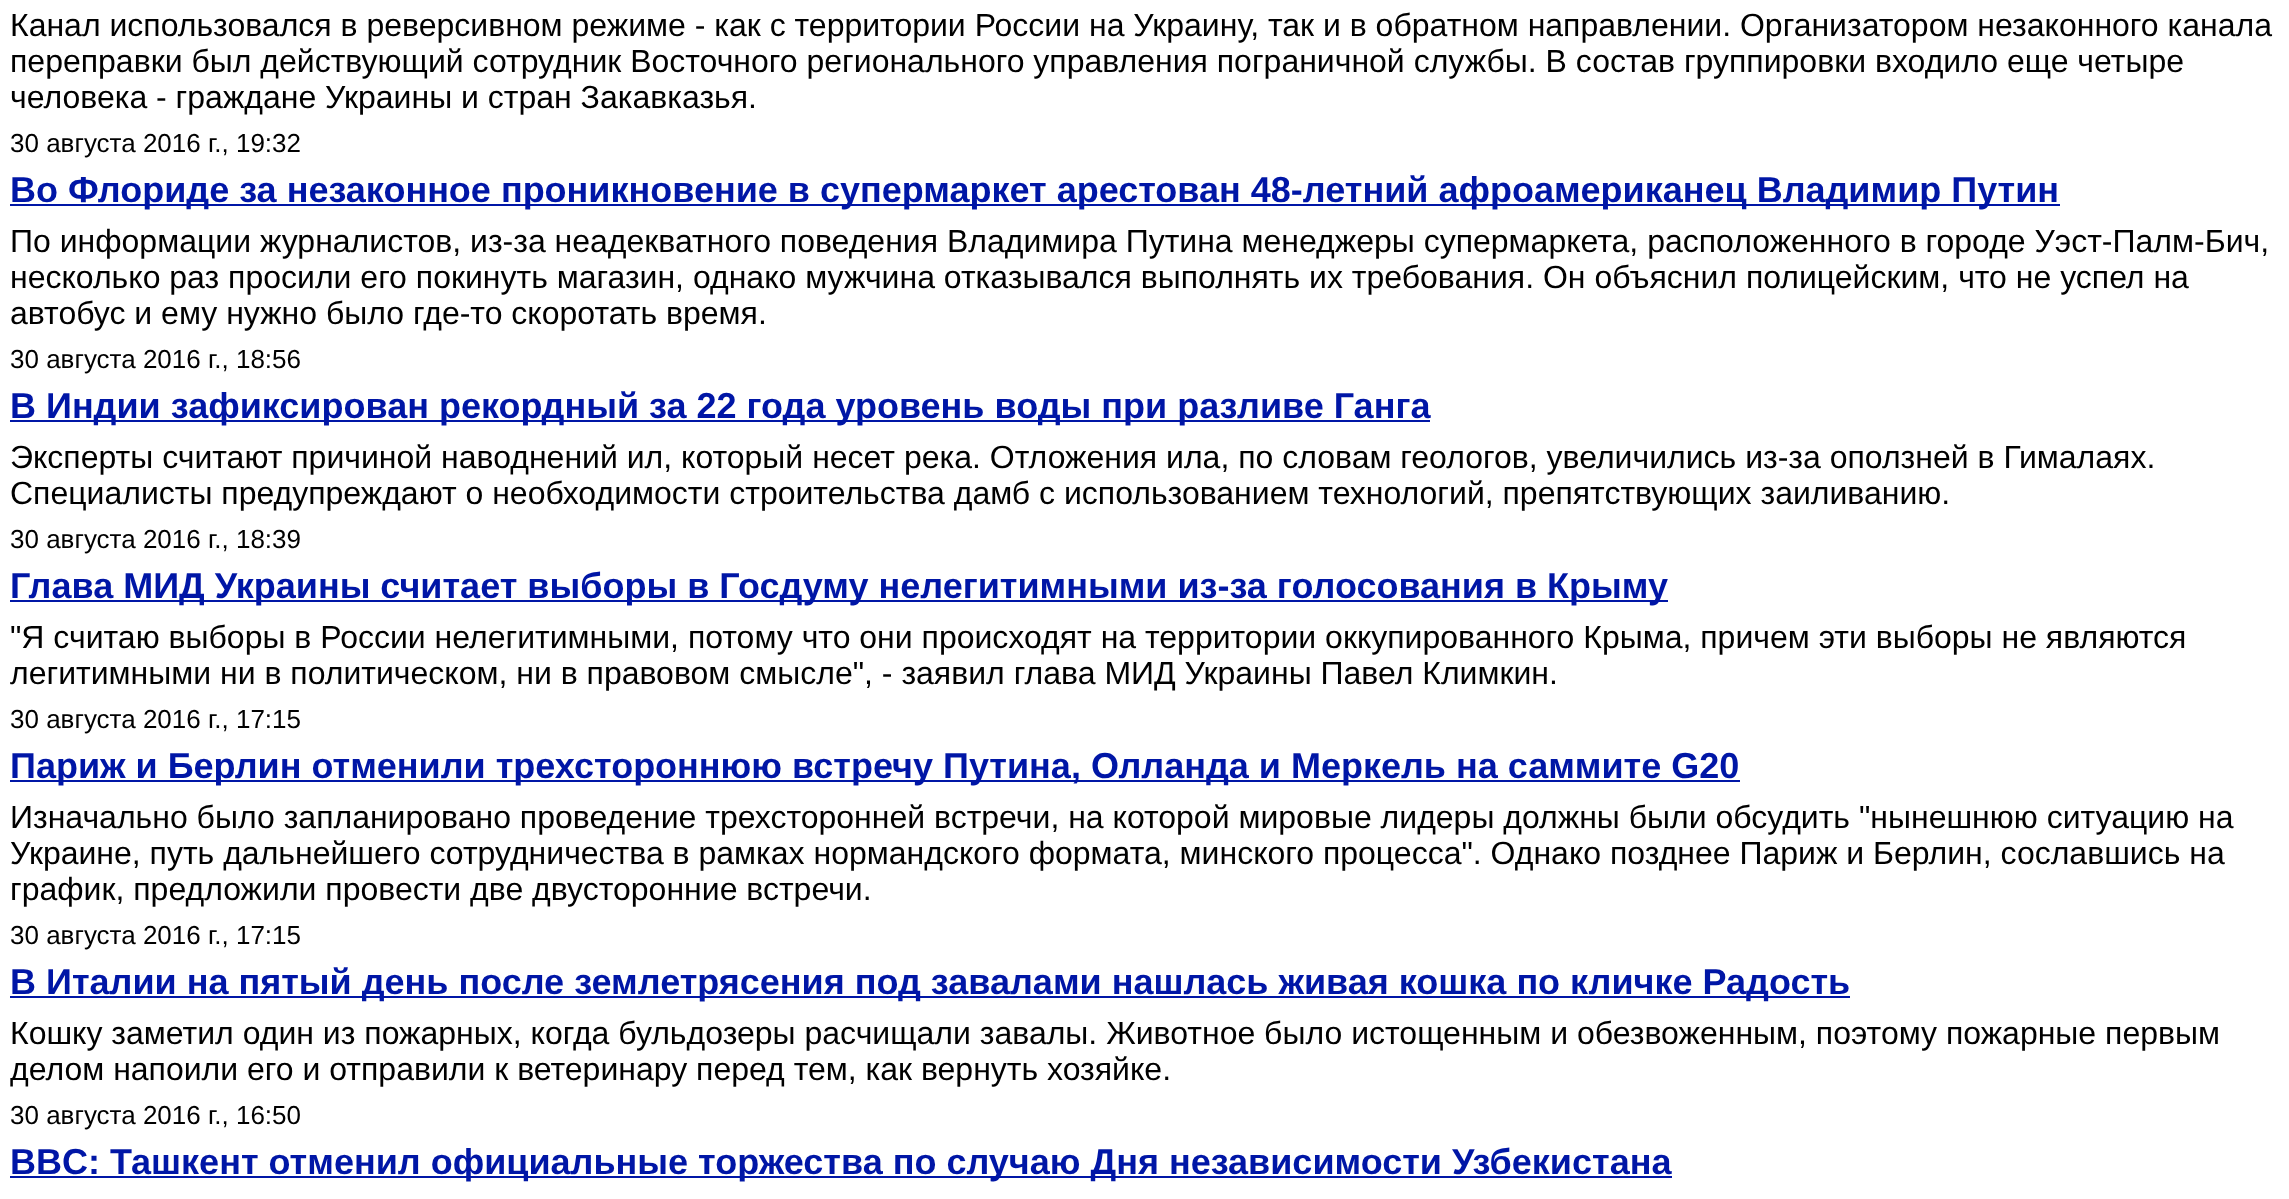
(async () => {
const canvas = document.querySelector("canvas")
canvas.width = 2289
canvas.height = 1199
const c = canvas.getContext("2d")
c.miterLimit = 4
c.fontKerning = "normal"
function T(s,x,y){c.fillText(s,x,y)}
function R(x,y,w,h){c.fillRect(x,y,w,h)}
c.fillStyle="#fff"
R(0,0,2289,1199)
c.font="32px Liberation Sans"
c.fillStyle="#000"
T("Канал использовался в реверсивном режиме - как с территории России на Украину, так и в обратном направлении. Организатором незаконного канала",10,36)
T("переправки был действующий сотрудник Восточного регионального управления пограничной службы. В состав группировки входило еще четыре",10,72)
T("человека - граждане Украины и стран Закавказья.",10,108)
c.font="26px Liberation Sans"
T("30 августа 2016 г., 19:32",10,152)
c.fillStyle="#0016a6"
R(10,204,2050,2)
c.font="bold 36px Liberation Sans"
T("Во Флориде за незаконное проникновение в супермаркет арестован 48-летний афроамериканец Владимир Путин",10,202)
c.font="32px Liberation Sans"
c.fillStyle="#000"
T("По информации журналистов, из-за неадекватного поведения Владимира Путина менеджеры супермаркета, расположенного в городе Уэст-Палм-Бич,",10,252)
T("несколько раз просили его покинуть магазин, однако мужчина отказывался выполнять их требования. Он объяснил полицейским, что не успел на",10,288)
T("автобус и ему нужно было где-то скоротать время.",10,324)
c.font="26px Liberation Sans"
T("30 августа 2016 г., 18:56",10,368)
c.fillStyle="#0016a6"
R(10,420,1420,2)
c.font="bold 36px Liberation Sans"
T("В Индии зафиксирован рекордный за 22 года уровень воды при разливе Ганга",10,418)
c.font="32px Liberation Sans"
c.fillStyle="#000"
T("Эксперты считают причиной наводнений ил, который несет река. Отложения ила, по словам геологов, увеличились из-за оползней в Гималаях.",10,468)
T("Специалисты предупреждают о необходимости строительства дамб с использованием технологий, препятствующих заиливанию.",10,504)
c.font="26px Liberation Sans"
T("30 августа 2016 г., 18:39",10,548)
c.fillStyle="#0016a6"
R(10,600,1658,2)
c.font="bold 36px Liberation Sans"
T("Глава МИД Украины считает выборы в Госдуму нелегитимными из-за голосования в Крыму",10,598)
c.font="32px Liberation Sans"
c.fillStyle="#000"
T("\"Я считаю выборы в России нелегитимными, потому что они происходят на территории оккупированного Крыма, причем эти выборы не являются",10,648)
T("легитимными ни в политическом, ни в правовом смысле\", - заявил глава МИД Украины Павел Климкин.",10,684)
c.font="26px Liberation Sans"
T("30 августа 2016 г., 17:15",10,728)
c.fillStyle="#0016a6"
R(10,780,1730,2)
c.font="bold 36px Liberation Sans"
T("Париж и Берлин отменили трехстороннюю встречу Путина, Олланда и Меркель на саммите G20",10,778)
c.font="32px Liberation Sans"
c.fillStyle="#000"
T("Изначально было запланировано проведение трехсторонней встречи, на которой мировые лидеры должны были обсудить \"нынешнюю ситуацию на",10,828)
T("Украине, путь дальнейшего сотрудничества в рамках нормандского формата, минского процесса\". Однако позднее Париж и Берлин, сославшись на",10,864)
T("график, предложили провести две двусторонние встречи.",10,900)
c.font="26px Liberation Sans"
T("30 августа 2016 г., 17:15",10,944)
c.fillStyle="#0016a6"
R(10,996,1840,2)
c.font="bold 36px Liberation Sans"
T("В Италии на пятый день после землетрясения под завалами нашлась живая кошка по кличке Радость",10,994)
c.font="32px Liberation Sans"
c.fillStyle="#000"
T("Кошку заметил один из пожарных, когда бульдозеры расчищали завалы. Животное было истощенным и обезвоженным, поэтому пожарные первым",10,1044)
T("делом напоили его и отправили к ветеринару перед тем, как вернуть хозяйке.",10,1080)
c.font="26px Liberation Sans"
T("30 августа 2016 г., 16:50",10,1124)
c.fillStyle="#0016a6"
R(10,1176,1662,2)
c.font="bold 36px Liberation Sans"
T("BBC: Ташкент отменил официальные торжества по случаю Дня независимости Узбекистана",10,1174)
})()
